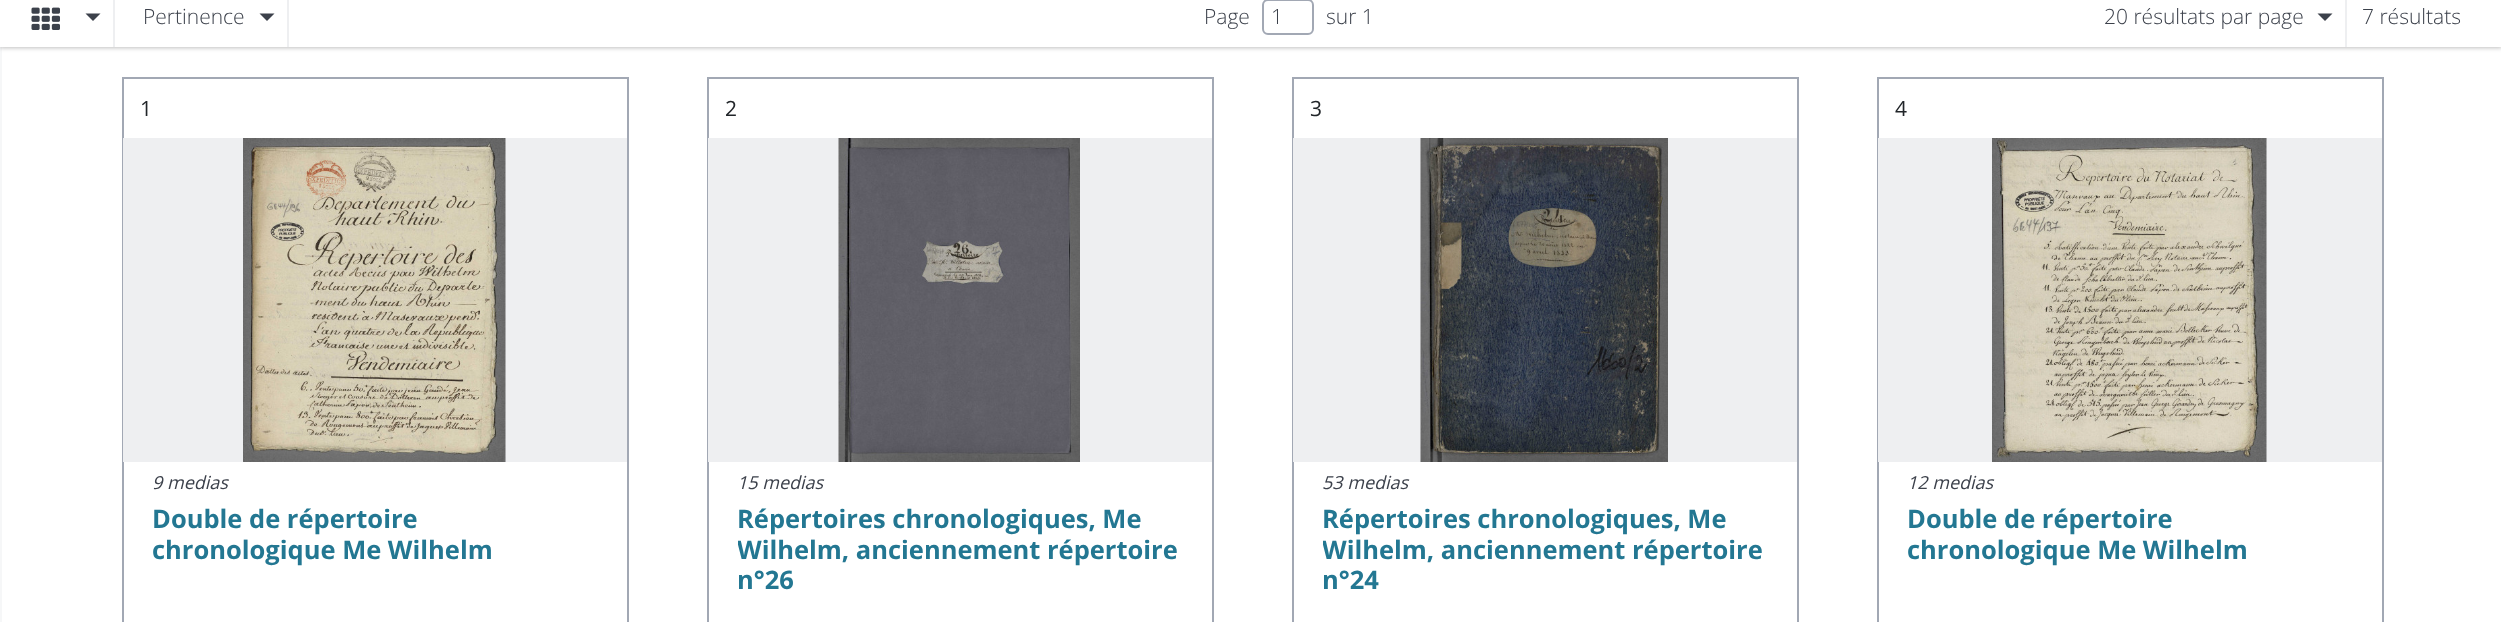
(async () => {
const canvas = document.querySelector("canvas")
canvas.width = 2501
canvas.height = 622
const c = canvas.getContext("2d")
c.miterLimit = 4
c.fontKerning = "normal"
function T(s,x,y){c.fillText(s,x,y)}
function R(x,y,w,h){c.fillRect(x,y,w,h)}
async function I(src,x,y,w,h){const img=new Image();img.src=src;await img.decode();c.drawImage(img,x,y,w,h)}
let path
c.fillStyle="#fff"
R(0,0,2501,622)
c.fillStyle="#f6f7f8"
R(0,47,2,575)
c.fillStyle="#00000040"
c.filter="blur(2px)"
c.beginPath()
c.rect(0,-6,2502,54)
c.fill()
c.filter="none"
c.fillStyle="#fff"
R(0,0,2501,47)
c.fillStyle="#eeeff1"
R(113,0,2,47)
await I("1.png",31,7,29,23)
c.fillStyle="#3c414b"
path = new Path2D("M85.5 13.5h15l-7.5 7.5z")
c.fill(path)
c.fillStyle="#eeeff1"
R(287,0,2,47)
c.font="300 21px Open Sans"
c.fillStyle="#3c414b"
T("Pertinence",143,24)
path = new Path2D("M259.5 13.5h15l-7.5 7.5z")
c.fill(path)
T("Page",1204,24)
c.beginPath()
c.roundRect(1263,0,50,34,5)
c.strokeStyle="#a2a8b4"
c.lineWidth=2
c.stroke()
T("1",1271,24)
T("sur 1",1326,24)
c.fillStyle="#eeeff1"
R(2345,0,2,47)
c.fillStyle="#3c414b"
T("20 résultats par page",2104,24)
path = new Path2D("M2317.5 13.5h15l-7.5 7.5z")
c.fill(path)
T("7 résultats",2362,24)
c.strokeRect(123,78,505,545)
c.font="21px Open Sans"
c.fillStyle="#212529"
T("1",140,116)
c.fillStyle="#eeeff1"
R(123,138,504,324)
await I("2.png",243,138,263,324)
c.font="italic 18px Open Sans"
c.fillStyle="#3c414b"
T("9 medias",152,489)
c.font="bold 25.5px Open Sans"
c.fillStyle="#237792"
T("Double de répertoire",152,528)
T("chronologique Me Wilhelm",152,559)
c.strokeRect(708,78,505,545)
c.font="21px Open Sans"
c.fillStyle="#212529"
T("2",725,116)
c.fillStyle="#eeeff1"
R(708,138,504,324)
await I("3.png",838,138,242,324)
c.font="italic 18px Open Sans"
c.fillStyle="#3c414b"
T("15 medias",737,489)
c.font="bold 25.5px Open Sans"
c.fillStyle="#237792"
T("Répertoires chronologiques, Me",737,528)
c.save()
c.beginPath()
c.rect(738,504,444,93)
c.clip()
T("Wilhelm, anciennement répertoire",737,559)
c.restore()
T("n°26",737,589)
c.strokeRect(1293,78,505,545)
c.font="21px Open Sans"
c.fillStyle="#212529"
T("3",1310,116)
c.fillStyle="#eeeff1"
R(1293,138,504,324)
await I("4.png",1420,138,248,324)
c.font="italic 18px Open Sans"
c.fillStyle="#3c414b"
T("53 medias",1322,489)
c.font="bold 25.5px Open Sans"
c.fillStyle="#237792"
T("Répertoires chronologiques, Me",1322,528)
c.save()
c.beginPath()
c.rect(1323,504,444,93)
c.clip()
T("Wilhelm, anciennement répertoire",1322,559)
c.restore()
T("n°24",1322,589)
c.strokeRect(1878,78,505,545)
c.font="21px Open Sans"
c.fillStyle="#212529"
T("4",1895,116)
c.fillStyle="#eeeff1"
R(1878,138,504,324)
await I("5.png",1992,138,275,324)
c.font="italic 18px Open Sans"
c.fillStyle="#3c414b"
T("12 medias",1907,489)
c.font="bold 25.5px Open Sans"
c.fillStyle="#237792"
T("Double de répertoire",1907,528)
T("chronologique Me Wilhelm",1907,559)
})()
